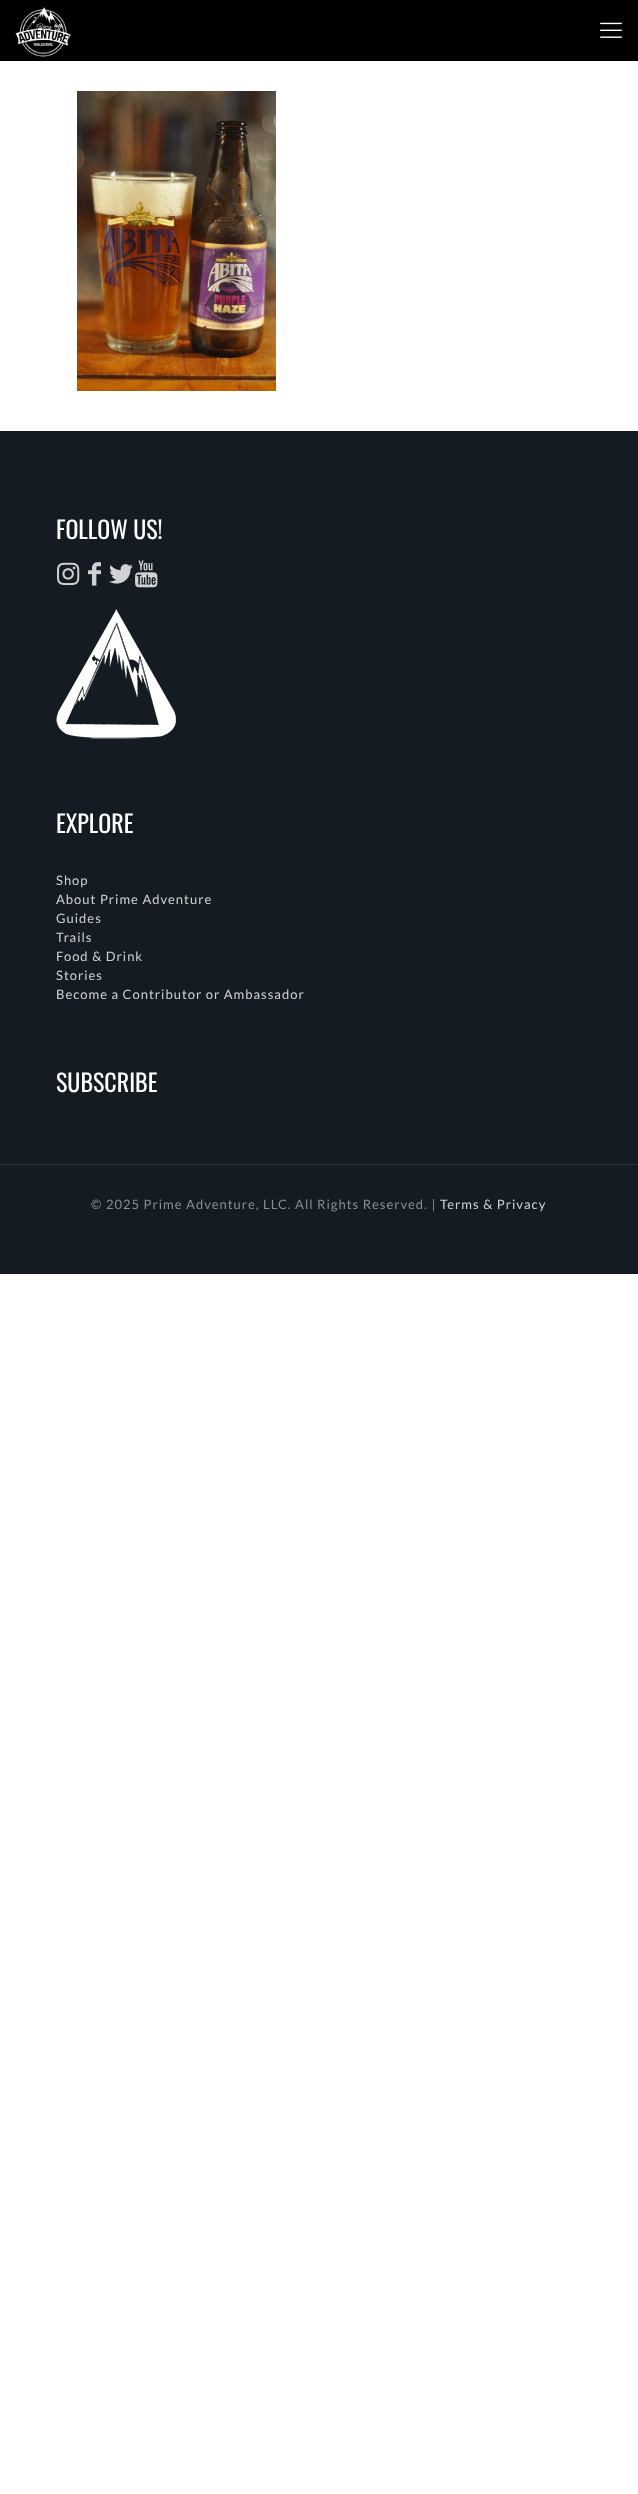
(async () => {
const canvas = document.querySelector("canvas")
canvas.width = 638
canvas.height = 2494
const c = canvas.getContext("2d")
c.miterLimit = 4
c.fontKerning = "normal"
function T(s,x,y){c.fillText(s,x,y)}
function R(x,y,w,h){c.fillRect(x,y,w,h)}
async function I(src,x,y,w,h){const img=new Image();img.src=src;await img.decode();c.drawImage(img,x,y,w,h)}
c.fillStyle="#fff"
R(0,0,638,2494)
c.fillStyle="#000"
R(0,0,638,61)
await I("1.png",15,7,56,50)
await I("2.png",600,22,22,16)
await I("3.png",77,91,199,300)
c.fillStyle="#141b22"
R(0,431,638,843)
c.font="24px Oswald"
c.fillStyle="#fff"
T("FOLLOW US!",56,539)
await I("4.png",57,562,23,24)
await I("5.png",88,562,13,24)
await I("6.png",109,564,24,20)
await I("7.png",135,560,23,28)
await I("8.png",56,609,120,130)
T("EXPLORE",56,833)
c.fillStyle="#12191f"
R(56,855,526,1)
c.letterSpacing="1px"
c.font="13px Lato"
c.fillStyle="#d0d1d3"
T("Shop",56,885)
T("About Prime Adventure",56,904)
T("Guides",56,923)
T("Trails",56,942)
T("Food & Drink",56,961)
T("Stories",56,980)
T("Become a Contributor or Ambassador",56,999)
c.letterSpacing="0px"
c.font="24px Oswald"
c.fillStyle="#fff"
T("SUBSCRIBE",56,1092)
c.fillStyle="#2c3238"
R(0,1164,638,1)
c.letterSpacing="1px"
c.font="13px Lato"
c.fillStyle="#8a8d91"
T("© 2025 Prime Adventure, LLC. All Rights Reserved. |",91,1209)
c.fillStyle="#d0d1d3"
T("Terms & Privacy",440,1209)
})()
